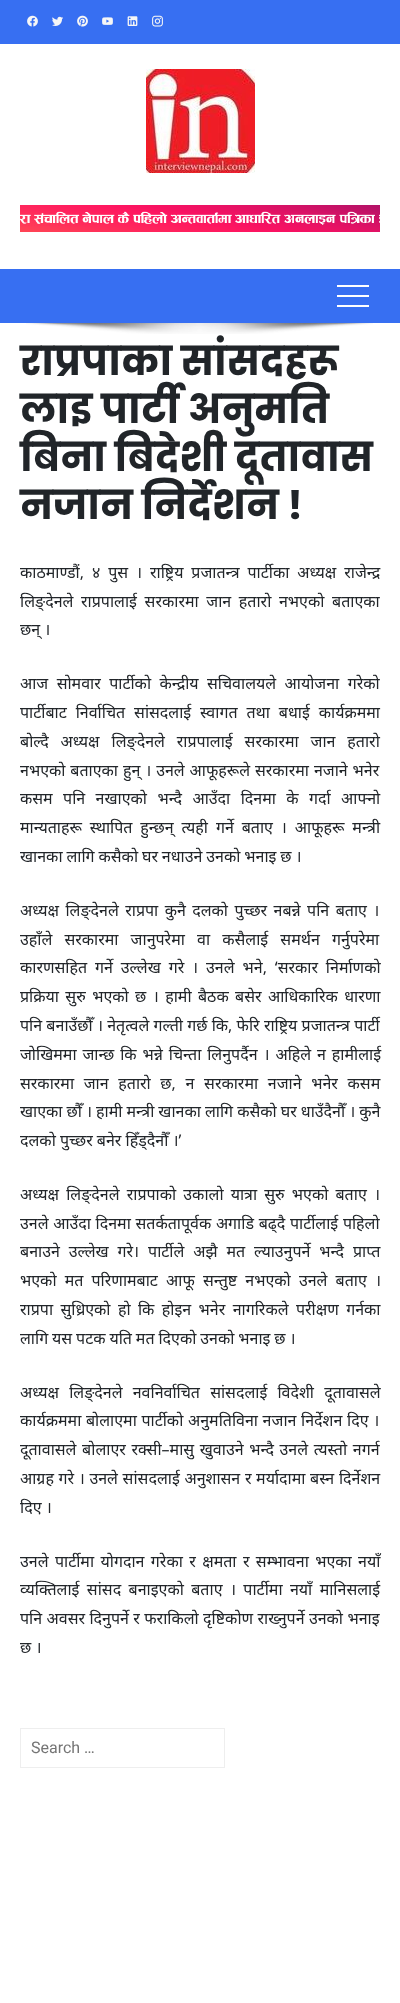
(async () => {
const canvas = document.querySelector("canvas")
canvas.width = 400
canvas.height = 2003
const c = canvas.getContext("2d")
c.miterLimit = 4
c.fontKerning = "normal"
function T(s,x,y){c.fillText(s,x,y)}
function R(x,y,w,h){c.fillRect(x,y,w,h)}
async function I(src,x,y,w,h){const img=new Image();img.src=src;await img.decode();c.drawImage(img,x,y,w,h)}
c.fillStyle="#fff"
R(0,0,400,2003)
c.fillStyle="#376ff2"
R(0,0,400,44)
await I("1.png",27,15,11,12)
await I("2.png",52,16,11,10)
await I("3.png",77,15,11,12)
await I("4.png",102,17,11,8)
await I("5.png",127,16,11,10)
await I("6.png",152,15,11,12)
await I("7.png",146,69,109,104)
await I("8.png",20,205,360,27)
R(0,269,400,54)
c.fillStyle="#fff"
R(337,285,32,2)
R(337,305,32,2)
R(337,295,32,2)
await I("9.png",26,323,347,11)
c.font="bold 40px Poppins"
c.fillStyle="#212529"
T("राप्रपाका सांसदहरू",20,375)
T("लाइ पार्टी अनुमति",20,423)
T("बिना बिदेशी दूतावास",20,471)
T("नजान निर्देशन !",20,519)
c.wordSpacing="3.75px"
c.font="16px Noto Sans"
T("काठमाण्डौं, ४ पुस । राष्ट्रिय प्रजातन्त्र पार्टीका अध्यक्ष राजेन्द्र",20,578)
c.wordSpacing="3.5px"
T("लिङ्देनले राप्रपालाई सरकारमा जान हतारो नभएको बताएका",20,607)
c.wordSpacing="0px"
T("छन् ।",20,635)
c.wordSpacing="4.25px"
T("आज सोमवार पार्टीको केन्द्रीय सचिवालयले आयोजना गरेको",20,689)
c.wordSpacing="4.75px"
T("पार्टीबाट निर्वाचित सांसदलाई स्वागत तथा बधाई कार्यक्रममा",20,718)
c.wordSpacing="7.75px"
T("बोल्दै अध्यक्ष लिङ्देनले राप्रपालाई सरकारमा जान हतारो",20,747)
c.wordSpacing="0.75px"
T("नभएको बताएका हुन् । उनले आफूहरूले सरकारमा नजाने भनेर",20,776)
c.wordSpacing="6.25px"
T("कसम पनि नखाएको भन्दै आउँदा दिनमा के गर्दा आफ्नो",20,804)
c.wordSpacing="3.75px"
T("मान्यताहरू स्थापित हुन्छन् त्यही गर्ने बताए । आफूहरू मन्त्री",20,833)
c.wordSpacing="-0.25px"
T("खानका लागि कसैको घर नधाउने उनको भनाइ छ ।",20,862)
c.wordSpacing="2.25px"
T("अध्यक्ष लिङ्देनले राप्रपा कुनै दलको पुच्छर नबन्ने पनि बताए ।",20,916)
c.wordSpacing="8px"
T("उहाँले सरकारमा जानुपरेमा वा कसैलाई समर्थन गर्नुपरेमा",20,945)
c.wordSpacing="3.75px"
T("कारणसहित गर्ने उल्लेख गरे । उनले भने, ‘सरकार निर्माणको",20,973)
c.wordSpacing="2.25px"
T("प्रक्रिया सुरु भएको छ । हामी बैठक बसेर आधिकारिक धारणा",20,1002)
c.wordSpacing="0.1px"
T("पनि बनाउँछौँ । नेतृत्वले गल्ती गर्छ कि, फेरि राष्ट्रिय प्रजातन्त्र पार्टी",20,1031)
c.wordSpacing="1.75px"
T("जोखिममा जान्छ कि भन्ने चिन्ता लिनुपर्दैन । अहिले न हामीलाई",20,1060)
c.wordSpacing="5.5px"
T("सरकारमा जान हतारो छ, न सरकारमा नजाने भनेर कसम",20,1089)
c.wordSpacing="-0.1px"
T("खाएका छौँ । हामी मन्त्री खानका लागि कसैको घर धाउँदैनौँ । कुनै",20,1117)
c.wordSpacing="0px"
T("दलको पुच्छर बनेर हिँड्दैनौँ ।’",20,1146)
c.wordSpacing="3px"
T("अध्यक्ष लिङ्देनले राप्रपाको उकालो यात्रा सुरु भएको बताए ।",20,1200)
c.wordSpacing="0.5px"
T("उनले आउँदा दिनमा सतर्कतापूर्वक अगाडि बढ्दै पार्टीलाई पहिलो",20,1229)
c.wordSpacing="4.75px"
T("बनाउने उल्लेख गरे। पार्टीले अझै मत ल्याउनुपर्ने भन्दै प्राप्त",20,1257)
c.wordSpacing="4px"
T("भएको मत परिणामबाट आफू सन्तुष्ट नभएको उनले बताए ।",20,1286)
c.wordSpacing="3.25px"
T("राप्रपा सुध्रिएको हो कि होइन भनेर नागरिकले परीक्षण गर्नका",20,1315)
c.wordSpacing="-0.25px"
T("लागि यस पटक यति मत दिएको उनको भनाइ छ ।",20,1344)
c.wordSpacing="6px"
T("अध्यक्ष लिङ्देनले नवनिर्वाचित सांसदलाई विदेशी दूतावासले",20,1398)
c.wordSpacing="0.5px"
T("कार्यक्रममा बोलाएमा पार्टीको अनुमतिविना नजान निर्देशन दिए ।",20,1426)
c.wordSpacing="1.5px"
T("दूतावासले बोलाएर रक्सी–मासु खुवाउने भन्दै उनले त्यस्तो नगर्न",20,1455)
c.wordSpacing="0.5px"
T("आग्रह गरे । उनले सांसदलाई अनुशासन र मर्यादामा बस्न दिर्नेशन",20,1484)
c.wordSpacing="0px"
T("दिए ।",20,1513)
c.wordSpacing="2.25px"
T("उनले पार्टीमा योगदान गरेका र क्षमता र सम्भावना भएका नयाँ",20,1567)
c.wordSpacing="3.25px"
T("व्यक्तिलाई सांसद बनाइएको बताए । पार्टीमा नयाँ मानिसलाई",20,1595)
c.wordSpacing="0.25px"
T("पनि अवसर दिनुपर्ने र फराकिलो दृष्टिकोण राख्नुपर्ने उनको भनाइ",20,1624)
c.wordSpacing="0px"
T("छ ।",20,1653)
c.strokeStyle="#eee"
c.strokeRect(20.5,1728.5,204,39)
c.font="16px Roboto"
c.fillStyle="#757575"
T("Search …",31,1753)
})()
